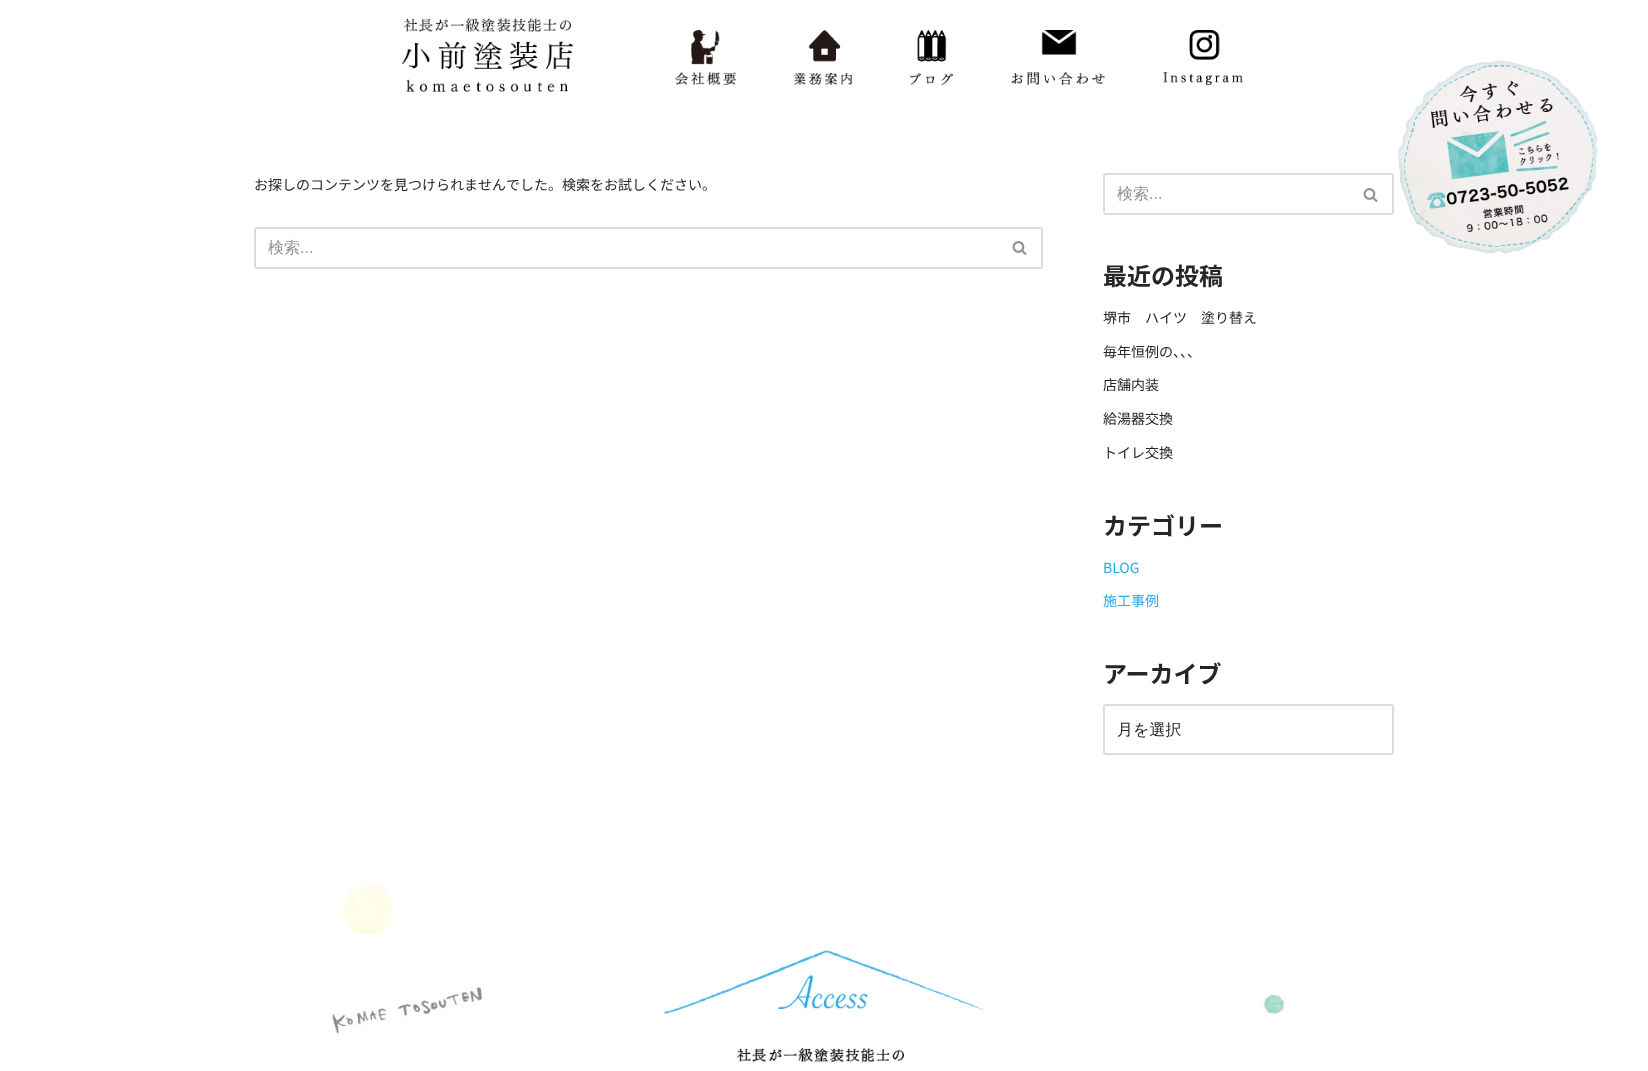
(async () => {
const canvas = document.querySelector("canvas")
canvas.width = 1648
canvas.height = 1071
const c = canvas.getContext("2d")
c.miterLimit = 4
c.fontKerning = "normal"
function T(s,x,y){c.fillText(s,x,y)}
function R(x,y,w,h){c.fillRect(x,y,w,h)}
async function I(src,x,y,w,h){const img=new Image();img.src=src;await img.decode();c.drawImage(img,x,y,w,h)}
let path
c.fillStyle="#fff"
R(0,0,1648,1071)
await I("1.png",401,18,173,74)
await I("2.png",675,30,61,55)
await I("3.png",794,30,58,55)
await I("4.png",910,30,43,55)
await I("5.png",1011,30,94,55)
await I("6.png",1163,30,80,55)
await I("7.png",1398,60,200,194)
c.font="14px Noto Sans JP"
c.fillStyle="#272626"
T("お探しのコンテンツを見つけられませんでした。検索をお試しください。",254,190)
c.fillStyle="#ddd"
path = new Path2D("M257 227h741v42h-741c-2 0-3-1-3-3v-36c0-2 1-3 3-3zm0 2h741v38h-741c-1 0-1 0-1-1v-36c0-1 0-1 1-1z")
c.fill(path,"evenodd")
c.font="500 16px WenQuanYi Zen Hei"
c.fillStyle="#939393"
T("検索",268,253)
c.font="16px Liberation Sans"
T("...",300,253)
c.fillStyle="#ddd"
path = new Path2D("M998 227h42c2 0 3 1 3 3v36c0 2-1 3-3 3h-42zm0 2h42c1 0 1 0 1 1v36c0 1 0 1-1 1h-42z")
c.fill(path,"evenodd")
await I("8.png",1012,241,15,14)
path = new Path2D("M1106 173h243v42h-243c-2 0-3-1-3-3v-36c0-2 1-3 3-3zm0 2h243v38h-243h-1v-37z")
c.fill(path,"evenodd")
c.font="500 16px WenQuanYi Zen Hei"
c.fillStyle="#939393"
T("検索",1117,199)
c.font="16px Liberation Sans"
T("...",1149,199)
c.fillStyle="#ddd"
path = new Path2D("M1349 173h42c2 0 3 1 3 3v36c0 2-1 3-3 3h-42zm0 2h42c1 0 1 0 1 1v36c0 1 0 1-1 1h-42z")
c.fill(path,"evenodd")
await I("8.png",1363,188,15,14)
c.font="bold 24px Noto Sans JP"
c.fillStyle="#272626"
T("最近の投稿",1103,285)
c.font="14px Noto Sans JP"
T("堺市　ハイツ　塗り替え",1103,323)
T("毎年恒例の、、、",1103,357)
T("店舗内装",1103,390)
T("給湯器交換",1103,424)
T("トイレ交換",1103,458)
c.font="bold 24px Noto Sans JP"
T("カテゴリー",1103,535)
c.font="14px Noto Sans JP"
c.fillStyle="#29aae1"
T("BLOG",1103,573)
T("施工事例",1103,606)
c.font="bold 24px Noto Sans JP"
c.fillStyle="#272626"
T("アーカイブ",1103,683)
c.beginPath()
c.roundRect(1104,705,289,49,2)
c.strokeStyle="#ddd"
c.lineWidth=2
c.stroke()
c.font="500 16px WenQuanYi Zen Hei"
T("月を選択",1117,735)
await I("9.png",332,885,955,149)
await I("10.png",664,950,320,64)
await I("11.png",736,1048,168,15)
})()
